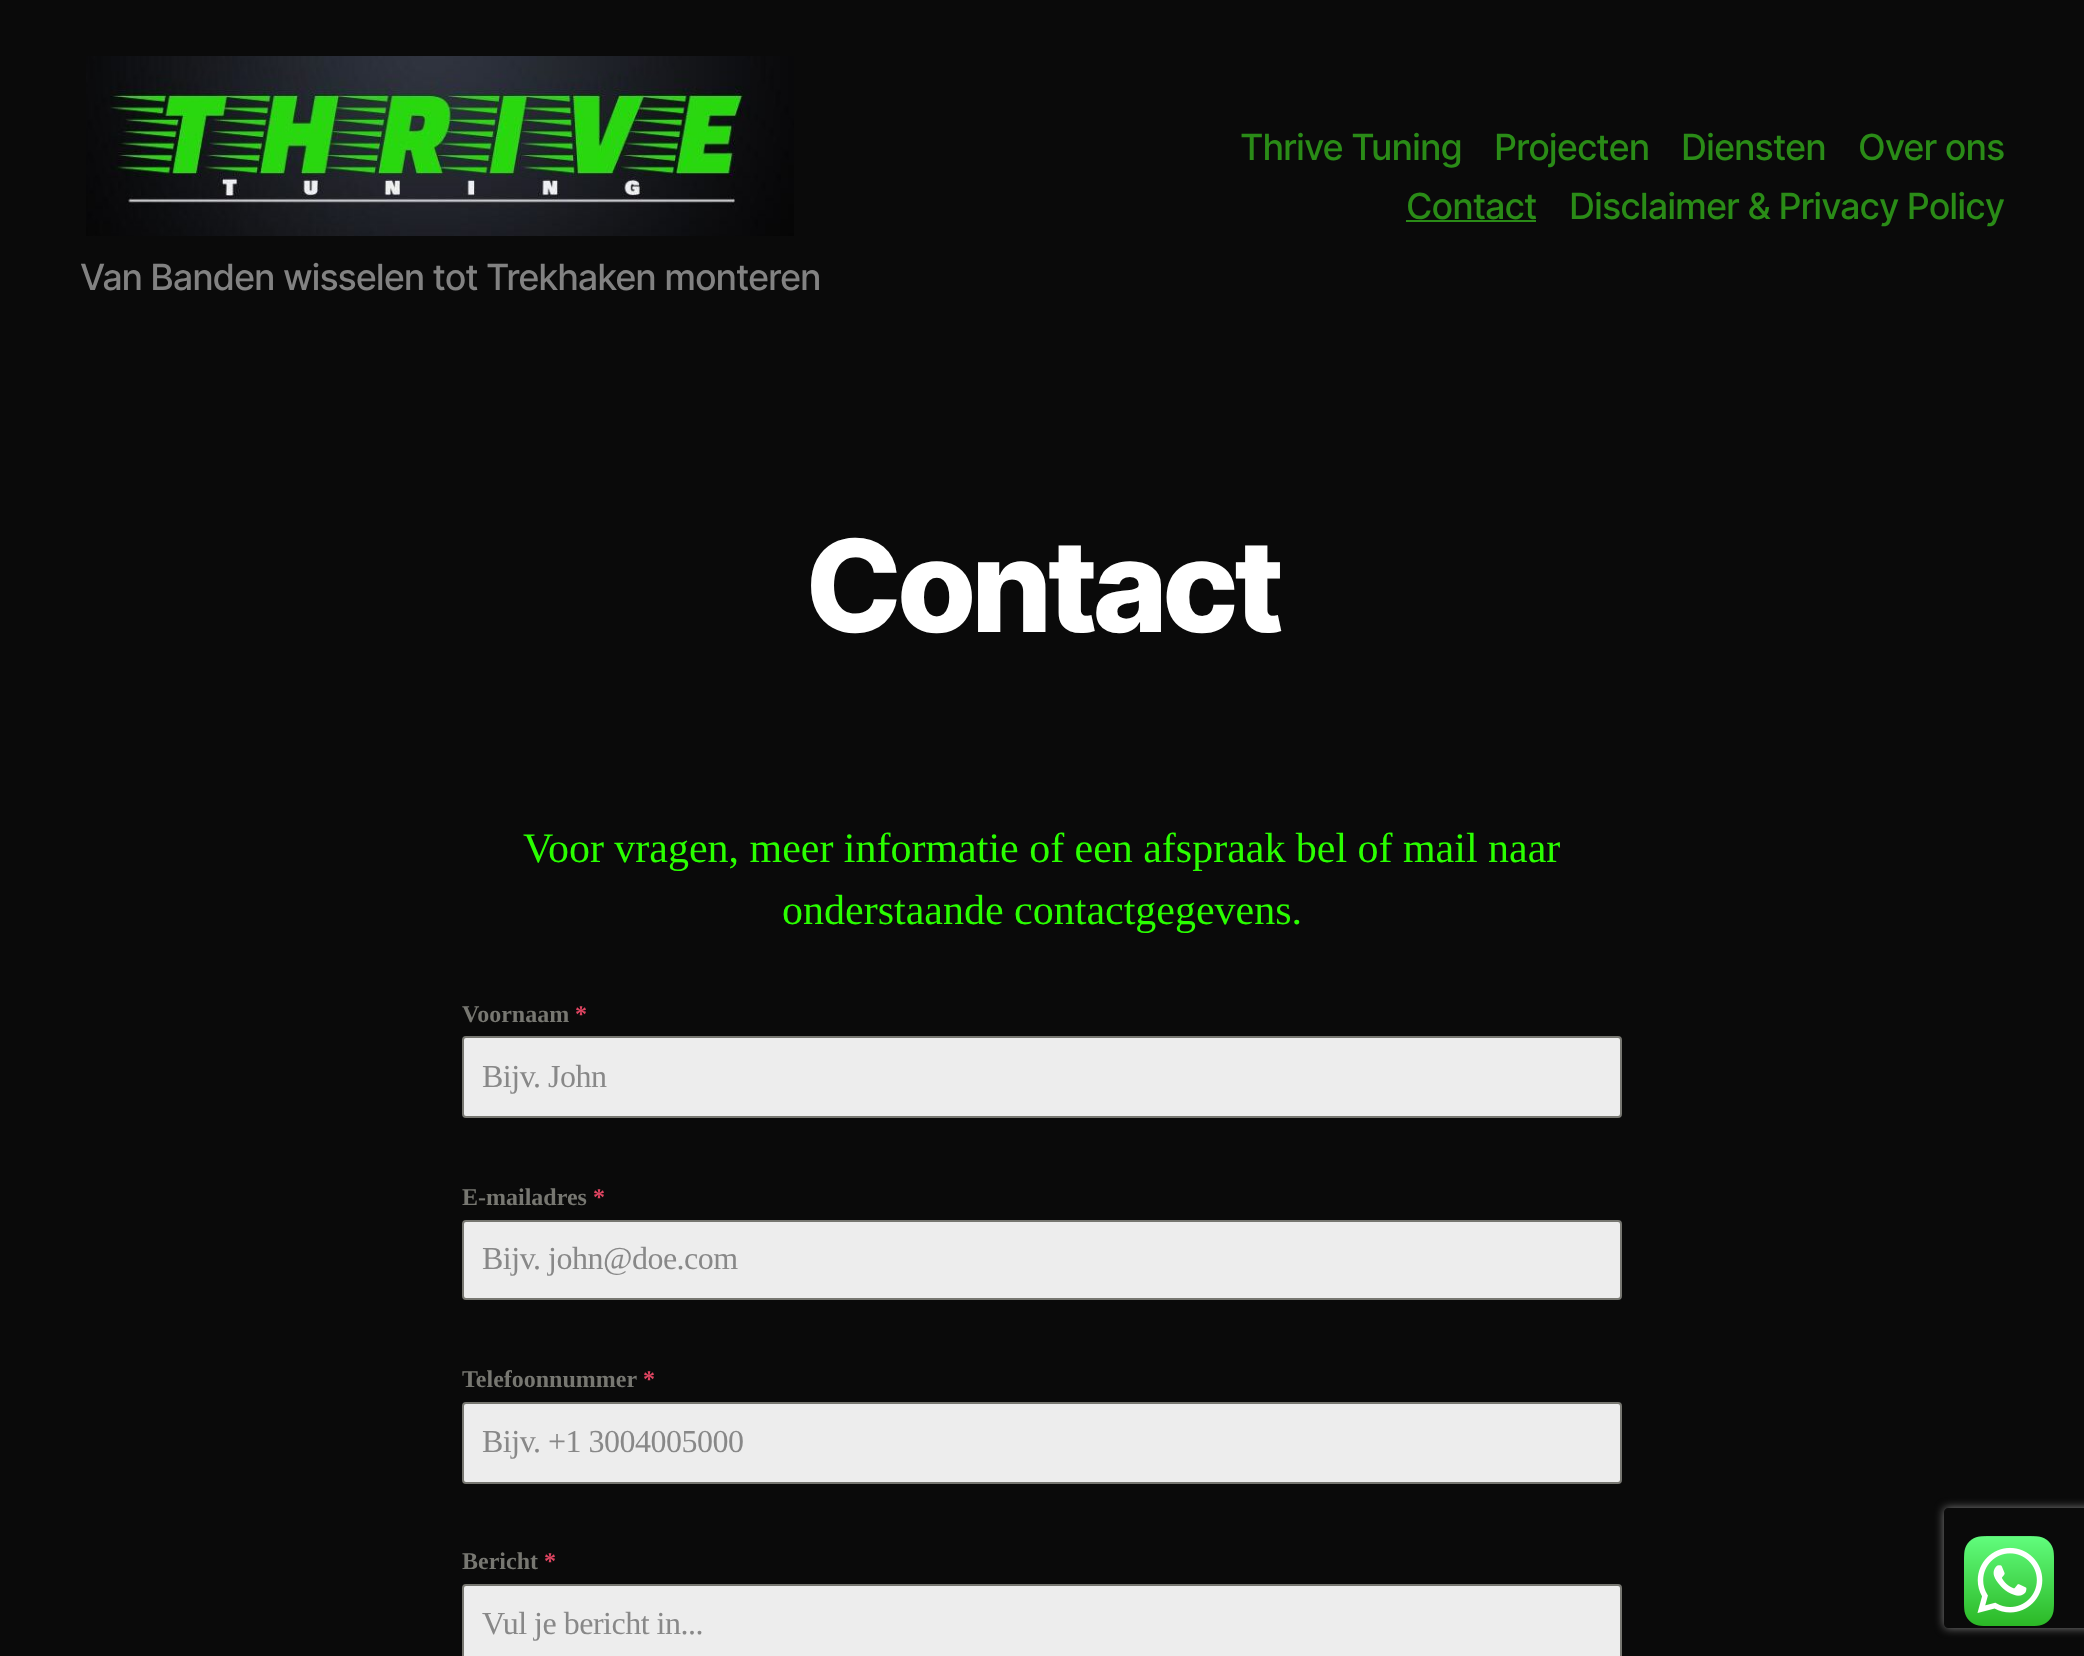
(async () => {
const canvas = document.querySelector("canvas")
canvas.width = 2084
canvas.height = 1656
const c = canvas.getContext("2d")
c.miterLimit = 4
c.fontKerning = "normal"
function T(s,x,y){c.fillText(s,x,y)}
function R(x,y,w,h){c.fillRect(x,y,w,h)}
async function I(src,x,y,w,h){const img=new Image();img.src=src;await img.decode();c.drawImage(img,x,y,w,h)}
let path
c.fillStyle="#0a0a0a"
R(0,0,2084,1656)
c.letterSpacing="-1px"
c.font="500 36px Inter"
c.fillStyle="#2a8b17"
T("Thrive Tuning",1240,160)
T("Projecten",1494,160)
T("Diensten",1681,160)
T("Over ons",1858,160)
T("Contact",1406,219)
R(1406,220,130,2)
T("Disclaimer & Privacy Policy",1569,219)
await I("1.png",86,56,708,180)
c.letterSpacing="-1.1px"
c.fillStyle="#828282"
T("Van Banden wisselen tot Trekhaken monteren",80,290)
c.letterSpacing="-5.25px"
c.font="800 128px Inter"
c.fillStyle="#fff"
T("Contact",805,632)
c.letterSpacing="0px"
c.wordSpacing="-0.1px"
c.font="42px Liberation Serif"
c.fillStyle="#2aff00"
T("Voor vragen, meer informatie of een afspraak bel of mail naar",523,862)
c.wordSpacing="0px"
T("onderstaande contactgegevens.",782,924)
c.font="bold 24px Liberation Serif"
c.fillStyle="#777771"
T("Voornaam",462,1022)
c.fillStyle="#e04562"
T("*",575,1022)
c.fillStyle="#ededed"
c.beginPath()
c.roundRect(463,1037,1158,80,3)
c.fill()
c.strokeStyle="#777771"
c.lineWidth=2
c.stroke()
c.letterSpacing="-0.5px"
c.font="32px Liberation Serif"
c.fillStyle="#888"
T("Bijv. John",482,1087)
c.letterSpacing="0px"
c.font="bold 24px Liberation Serif"
c.fillStyle="#777771"
T("E-mailadres",462,1205)
c.fillStyle="#e04562"
T("*",593,1205)
c.fillStyle="#ededed"
c.beginPath()
c.roundRect(463,1221,1158,78,3)
c.fill()
c.stroke()
c.letterSpacing="-0.5px"
c.font="32px Liberation Serif"
c.fillStyle="#888"
T("Bijv. john@doe.com",482,1269)
c.letterSpacing="0px"
c.font="bold 24px Liberation Serif"
c.fillStyle="#777771"
T("Telefoonnummer",462,1387)
c.fillStyle="#e04562"
T("*",643,1387)
c.fillStyle="#ededed"
c.beginPath()
c.roundRect(463,1403,1158,80,3)
c.fill()
c.stroke()
c.letterSpacing="-0.5px"
c.font="32px Liberation Serif"
c.fillStyle="#888"
T("Bijv. +1 3004005000",482,1452)
c.letterSpacing="0px"
c.font="bold 24px Liberation Serif"
c.fillStyle="#777771"
T("Bericht",462,1569)
c.fillStyle="#e04562"
T("*",544,1569)
c.fillStyle="#ededed"
c.beginPath()
c.roundRect(463,1585,1158,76,3)
c.fill()
c.stroke()
c.letterSpacing="-0.5px"
c.font="32px Liberation Serif"
c.fillStyle="#888"
T("Vul je bericht in...",482,1634)
c.save()
path = new Path2D("M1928 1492h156v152h-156zm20 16h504c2 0 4 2 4 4v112c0 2-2 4-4 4h-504c-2 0-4-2-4-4v-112c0-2 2-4 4-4z")
c.clip(path,"evenodd")
c.fillStyle="#808080"
c.filter="blur(5px)"
c.beginPath()
c.roundRect(1944,1508,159,120,4)
c.fill()
c.filter="none"
c.restore()
await I("2.png",1964,1536,90,90)
})()
